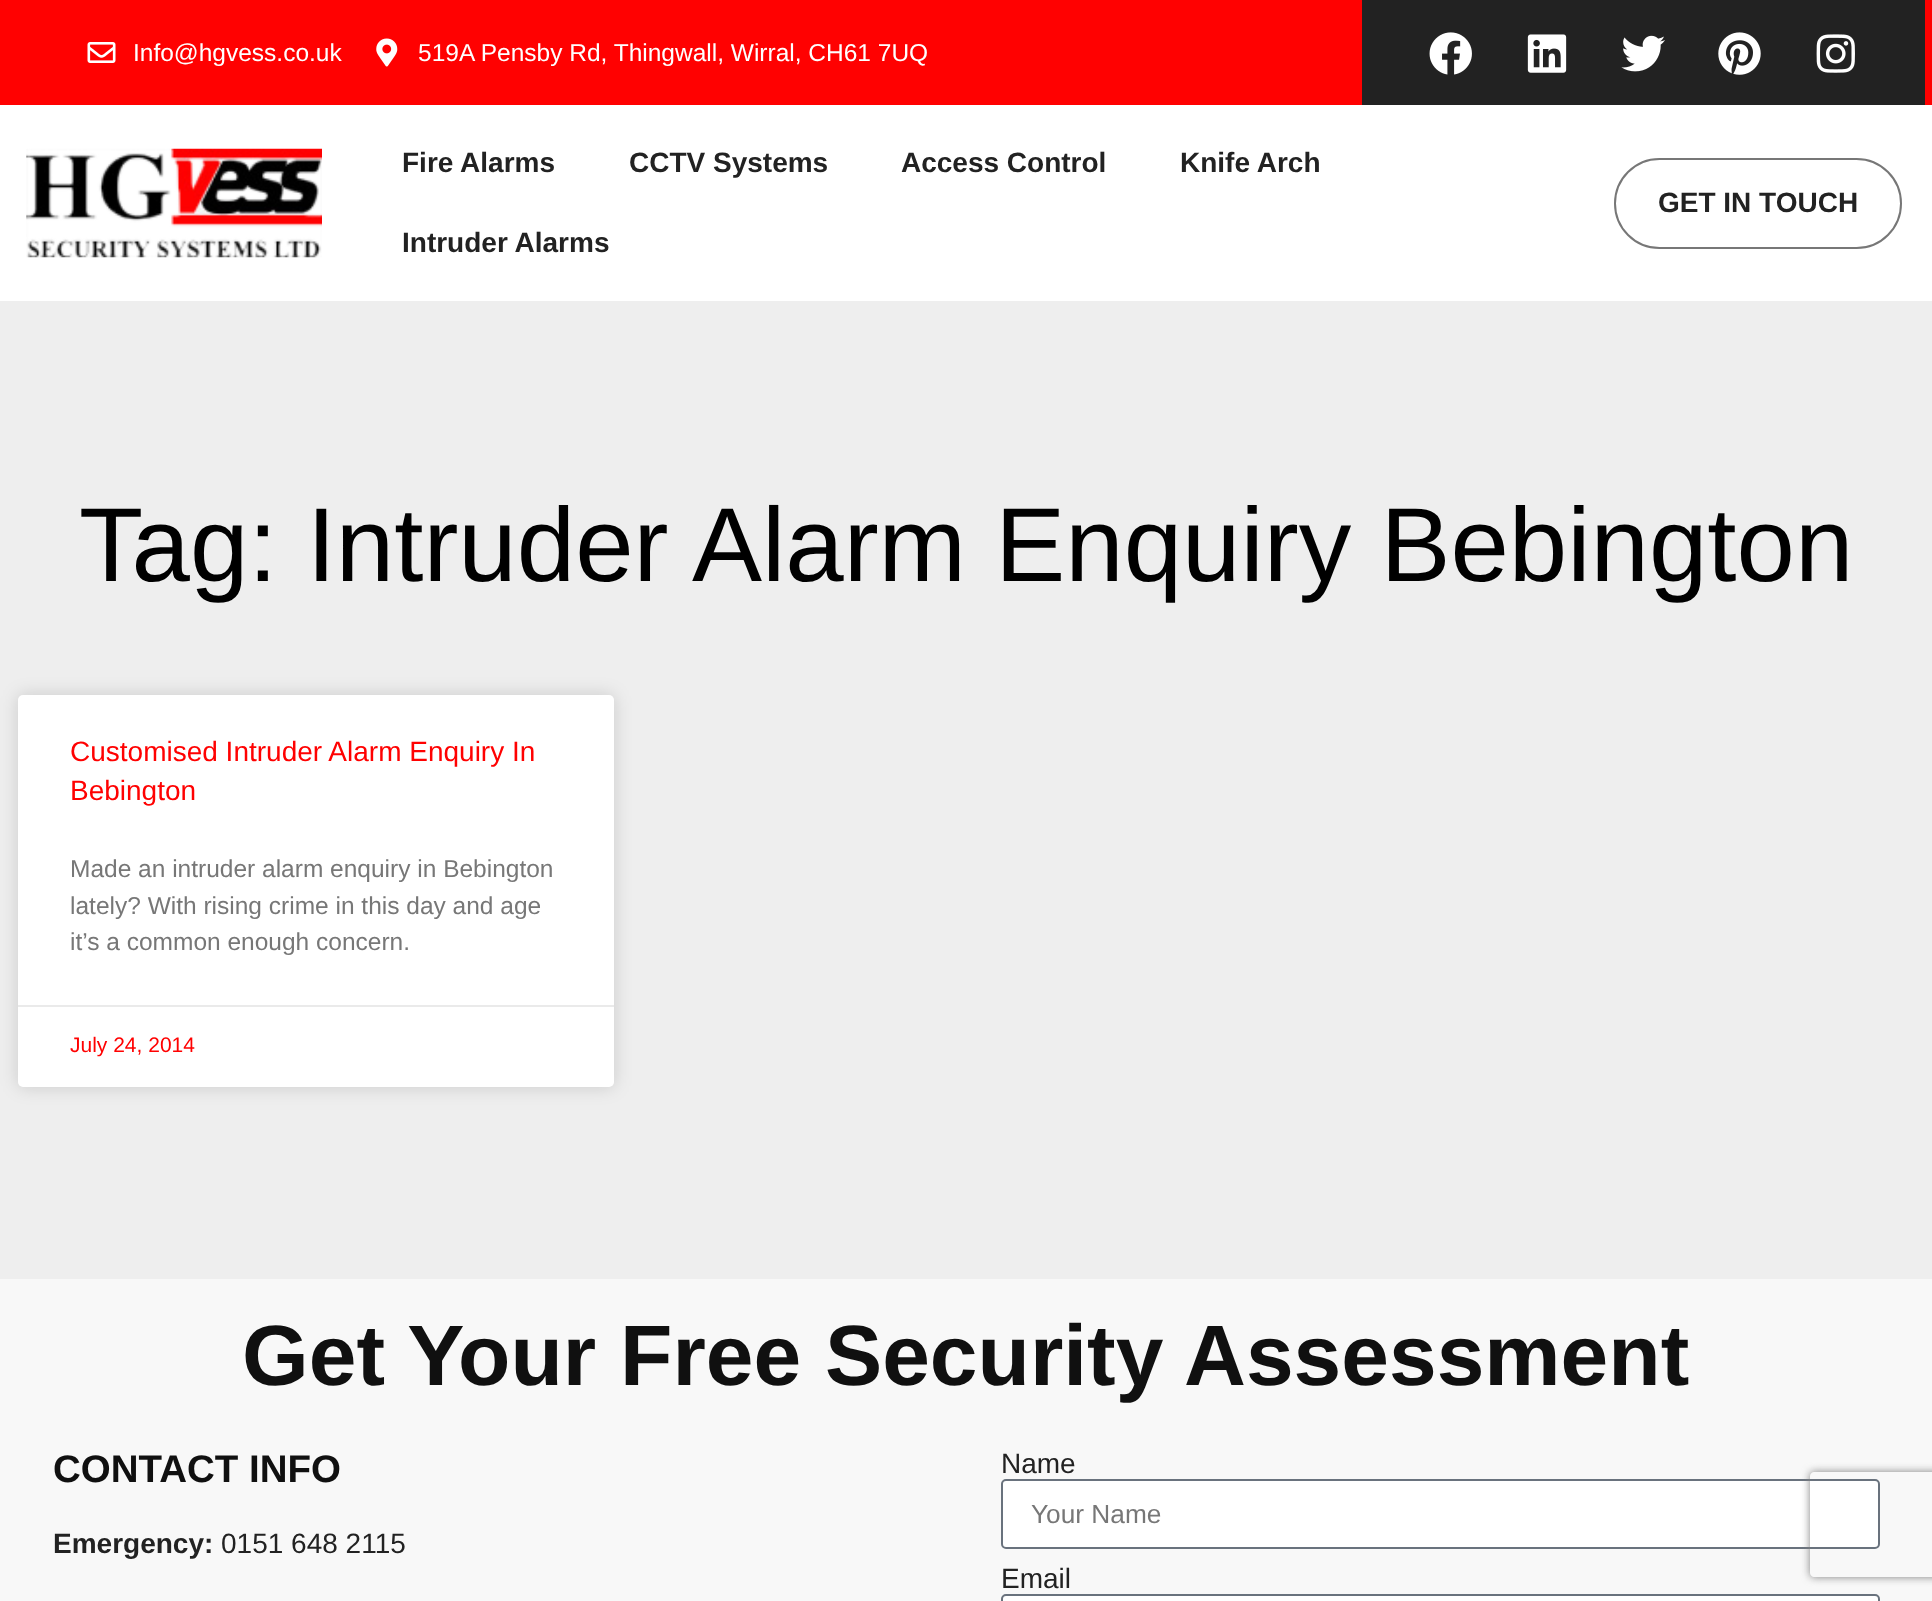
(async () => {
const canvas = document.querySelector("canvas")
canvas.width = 1932
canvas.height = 1601
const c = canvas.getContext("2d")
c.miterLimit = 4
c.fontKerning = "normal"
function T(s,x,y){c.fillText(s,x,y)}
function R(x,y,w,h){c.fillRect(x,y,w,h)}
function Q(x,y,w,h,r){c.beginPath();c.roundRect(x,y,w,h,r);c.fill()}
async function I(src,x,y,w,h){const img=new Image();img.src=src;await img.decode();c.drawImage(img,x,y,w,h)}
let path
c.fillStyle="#fff"
R(0,0,1932,1601)
c.fillStyle="#ff0101"
R(0,0,1932,105)
await I("1.png",87,42,29,21)
c.font="24.5px Liberation Sans"
c.fillStyle="#fff"
T("Info@hgvess.co.uk",133,61)
await I("2.png",376,38,22,29)
T("519A Pensby Rd, Thingwall, Wirral, CH61 7UQ",418,61)
c.fillStyle="#222"
R(1362,0,563,105)
await I("3.png",1429,32,43,43)
await I("4.png",1527,34,40,39)
await I("5.png",1621,35,44,37)
await I("6.png",1718,32,43,43)
await I("7.png",1816,34,39,39)
await I("8.png",26,148,296,110)
c.font="bold 28px Liberation Sans"
T("Fire Alarms",402,172)
T("CCTV Systems",629,172)
T("Access Control",901,172)
T("Knife Arch",1180,172)
T("Intruder Alarms",402,252)
c.beginPath()
c.roundRect(1615,159,286,89,44.5)
c.strokeStyle="#777"
c.lineWidth=2
c.stroke()
T("GET IN TOUCH",1658,212)
c.fillStyle="#eee"
R(0,301,1932,978)
c.font="105px Liberation Sans"
c.fillStyle="#000"
T("Tag: Intruder Alarm Enquiry Bebington",79,581)
c.fillStyle="#00000026"
c.filter="blur(9px)"
c.beginPath()
c.roundRect(18,695,596,392,5)
c.fill()
c.filter="none"
c.fillStyle="#fff"
Q(18,695,596,392,5)
c.font="28px Liberation Sans"
c.fillStyle="#ff0101"
T("Customised Intruder Alarm Enquiry In",70,761)
T("Bebington",70,800)
c.font="24.5px Liberation Sans"
c.fillStyle="#777"
T("Made an intruder alarm enquiry in Bebington",70,877)
T("lately? With rising crime in this day and age",70,914)
T("it’s a common enough concern.",70,950)
c.fillStyle="#eaeaea"
R(18,1005,596,2)
c.font="21px Liberation Sans"
c.fillStyle="#ff0101"
T("July 24, 2014",70,1052)
c.fillStyle="#f8f8f8"
R(0,1279,1932,322)
c.font="bold 85.75px Liberation Sans"
c.fillStyle="#101010"
T("Get Your Free Security Assessment",242,1385)
c.font="bold 38.5px Liberation Sans"
T("CONTACT INFO",53,1482)
c.font="bold 28px Liberation Sans"
c.fillStyle="#222"
T("Emergency:",53,1553)
c.font="28px Liberation Sans"
T("0151 648 2115",221,1553)
T("Name",1001,1473)
c.fillStyle="#fff"
c.beginPath()
c.roundRect(1002,1480,877,68,4)
c.fill()
c.strokeStyle="#69727d"
c.stroke()
c.font="26.25px Liberation Sans"
c.fillStyle="#777"
T("Your Name",1031,1523)
c.font="28px Liberation Sans"
c.fillStyle="#222"
T("Email",1001,1588)
c.fillStyle="#fff"
c.beginPath()
c.roundRect(1002,1595,877,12,4)
c.fill()
c.stroke()
c.save()
path = new Path2D("M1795 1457h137v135h-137zm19 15h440c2 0 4 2 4 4v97c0 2-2 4-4 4h-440c-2 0-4-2-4-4v-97c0-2 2-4 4-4z")
c.clip(path,"evenodd")
c.fillStyle="#808080"
c.filter="blur(4.5px)"
c.beginPath()
c.roundRect(1810,1472,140,105,4)
c.fill()
c.filter="none"
c.restore()
})()
